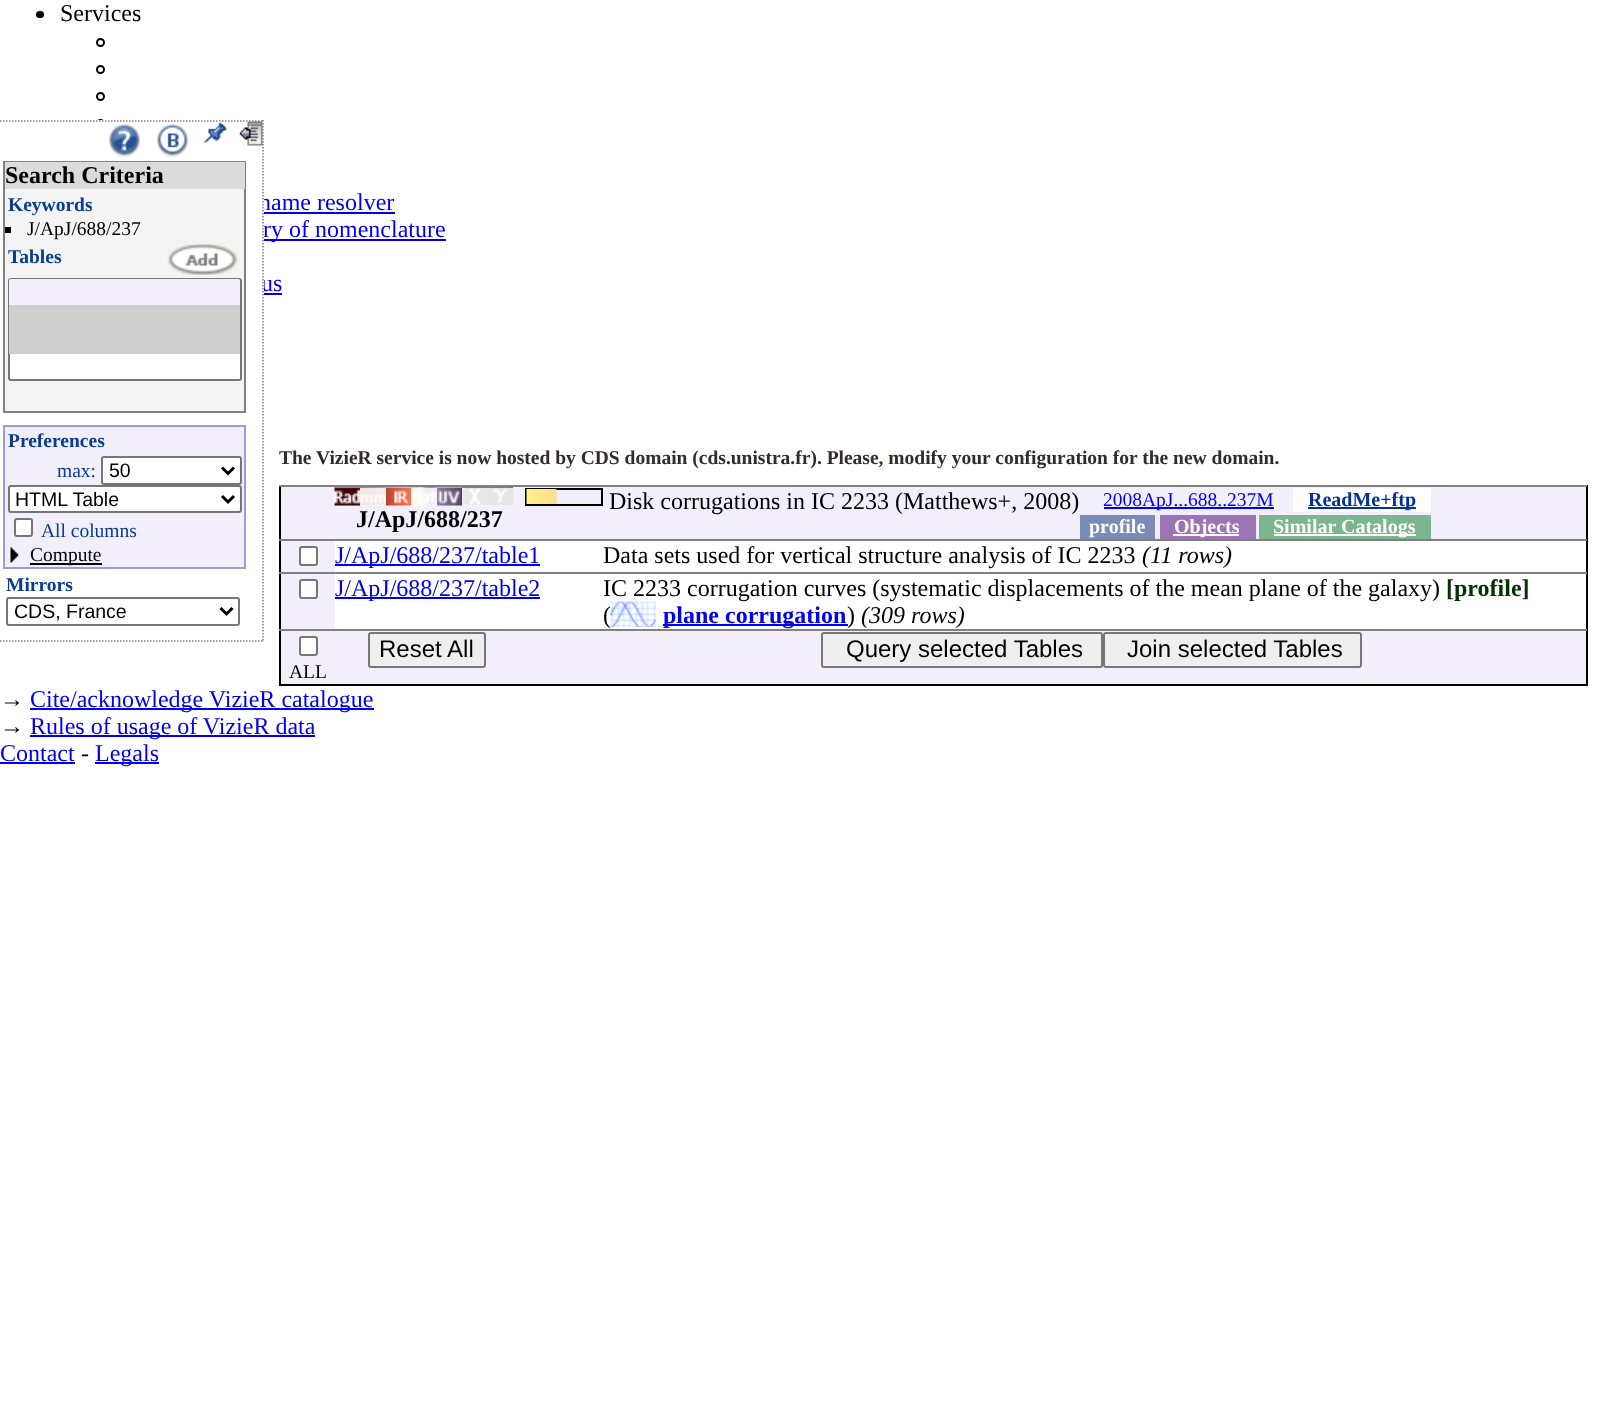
(async () => {
const canvas = document.querySelector("canvas")
canvas.width = 1601
canvas.height = 1428
const c = canvas.getContext("2d")
c.miterLimit = 4
c.fontKerning = "normal"
function T(s,x,y){c.fillText(s,x,y)}
function R(x,y,w,h){c.fillRect(x,y,w,h)}
function Q(x,y,w,h,r){c.beginPath();c.roundRect(x,y,w,h,r);c.fill()}
async function I(src,x,y,w,h){const img=new Image();img.src=src;await img.decode();c.drawImage(img,x,y,w,h)}
let path
c.fillStyle="#fff"
R(0,0,1601,1428)
c.fillStyle="#000"
Q(36,11,8,7,3.5)
c.font="24px Liberation Serif"
T("Services",60,21)
c.beginPath()
c.arc(100.5,42.5,3.5,0,7)
c.strokeStyle="#000"
c.lineWidth=2
c.stroke()
c.beginPath()
c.arc(100.5,69.5,3.5,0,7)
c.stroke()
c.beginPath()
c.arc(100.5,96.5,3.5,0,7)
c.stroke()
c.beginPath()
c.arc(100.5,123.5,3.5,0,7)
c.stroke()
c.fillStyle="#00e"
T("name resolver",259,210)
R(264,212,131,2)
R(264,239,182,2)
T("ry of nomenclature",263,237)
T("us",261,291)
R(264,293,18,2)
c.fillStyle="#fff"
R(96,120,168,171)
path = new Path2D("M0 121h264")
c.strokeStyle="#808080"
c.lineWidth=1.5
c.setLineDash([1.5,1.5])
c.stroke(path)
path = new Path2D("M263 120v522")
c.stroke(path)
path = new Path2D("M0 641h264")
c.stroke(path)
await I("1.png",109,124,32,33)
await I("2.png",157,124,32,33)
await I("3.png",203,122,24,21)
await I("4.png",239,121,24,25)
c.fillStyle="#f4f4f4"
R(5,189,239,222)
c.lineWidth=2
c.setLineDash([])
c.strokeRect(4,162,241,250)
c.fillStyle="#dbdbdb"
R(5,162,240,27)
c.font="bold 24px Liberation Serif"
c.fillStyle="#000"
T("Search Criteria",5,183)
c.font="bold 19.5px Liberation Serif"
c.fillStyle="#083c91"
T("Keywords",8,211)
c.fillStyle="#000"
R(5,227,6,6)
c.font="19.5px Liberation Serif"
T("J/ApJ/688/237",27,235)
c.font="bold 19.5px Liberation Serif"
c.fillStyle="#083c91"
T("Tables",8,263)
await I("5.png",167,244,71,31)
c.fillStyle="#fff"
c.beginPath()
c.roundRect(9,279,232,101,2)
c.fill()
c.strokeStyle="#767676"
c.stroke()
c.fillStyle="#f2effb"
c.beginPath()
c.roundRect(9,279,231,26,[1.5,1.5,0,0])
c.fill()
c.fillStyle="#cecece"
R(9,305,231,49)
c.fillStyle="#f2effb"
c.beginPath()
c.rect(4,426,241,142)
c.fill()
c.strokeStyle="#9c9bd5"
c.stroke()
c.fillStyle="#083c91"
T("Preferences",8,447)
c.font="19.5px Liberation Serif"
T("max:",57,477)
c.fillStyle="#fff"
c.beginPath()
c.roundRect(102,457,139,27,2)
c.fill()
c.strokeStyle="#767676"
c.stroke()
path = new Path2D("M222 467.5l6 6l6-6")
c.strokeStyle="#000"
c.lineWidth=3
c.stroke(path)
c.font="19.5px Liberation Sans"
c.fillStyle="#000"
T("50",109,477)
c.fillStyle="#fff"
c.beginPath()
c.roundRect(9,486,232,26,2)
c.fill()
c.strokeStyle="#767676"
c.lineWidth=2
c.stroke()
path = new Path2D("M222 496l6 6l6-6")
c.strokeStyle="#000"
c.lineWidth=3
c.stroke(path)
c.fillStyle="#000"
T("HTML Table",15,506)
c.fillStyle="#fff"
c.beginPath()
c.roundRect(15,519,17,17,2)
c.fill()
c.strokeStyle="#767676"
c.lineWidth=2
c.stroke()
c.font="19.5px Liberation Serif"
c.fillStyle="#083c91"
T("All columns",41,537)
await I("6.png",10,547,9,16)
c.fillStyle="#000"
R(30,563,72,2)
T("Compute",30,561)
c.font="bold 19.5px Liberation Serif"
c.fillStyle="#083c91"
T("Mirrors",6,591)
c.beginPath()
c.roundRect(7,598,232,27,2)
c.stroke()
path = new Path2D("M220.5 608l6 6l6-6")
c.strokeStyle="#000"
c.lineWidth=3
c.stroke(path)
c.font="19.5px Liberation Sans"
c.fillStyle="#000"
T("CDS, France",14,618)
c.font="bold 19.5px Liberation Serif"
c.fillStyle="#352a28"
T("The VizieR service is now hosted by CDS domain (cds.unistra.fr). Please, modify your configuration for the new domain.",279,464)
c.fillStyle="#000"
R(1586,485,2,201)
c.fillStyle="#f2effb"
R(603,630,6,56)
c.fillStyle="#000"
R(279,684,1308,2)
R(279,485,2,201)
c.fillStyle="#f2effb"
R(603,486,6,54)
c.fillStyle="#808080"
R(279,485,1308,2)
c.fillStyle="#f2effb"
R(281,487,322,52)
await I("7.png",334,487,179,19)
c.fillStyle="#ffffffe6"
R(360,488,26,18)
R(411,488,26,18)
R(462,488,26,18)
R(488,488,25,18)
c.font="bold 24px Liberation Serif"
c.fillStyle="#000"
T("J/ApJ/688/237",356,527)
c.lineWidth=2
c.strokeRect(526,489,76,16)
await I("8.png",526,489,31,15)
c.fillStyle="#f2effb"
R(609,487,977,52)
c.font="24px Liberation Serif"
c.fillStyle="#000"
T("Disk corrugations in IC 2233 (Matthews+, 2008)",609,509)
c.fillStyle="#00f"
R(1104,507,170,2)
c.font="19.5px Liberation Serif"
T("2008ApJ...688..237M",1103,506)
c.fillStyle="#fff"
R(1293,488,138,24)
c.fillStyle="#039"
R(1308,507,108,2)
c.font="bold 20px Liberation Serif"
T("ReadMe+ftp",1308,506)
c.fillStyle="#7a8bb6"
R(1080,515,75,24)
c.fillStyle="#fff"
T("profile",1089,533)
c.fillStyle="#9c74b6"
R(1160,515,96,24)
c.fillStyle="#fff"
R(1173,534,66,2)
T("Objects",1174,533)
c.fillStyle="#7cb68e"
R(1259,515,172,24)
c.fillStyle="#fff"
R(1274,534,142,2)
T("Similar Catalogs",1273,533)
c.fillStyle="#f2effb"
R(281,541,54,31)
c.fillStyle="#fff"
c.beginPath()
c.roundRect(300,547,17,18,2)
c.fill()
c.strokeStyle="#767676"
c.stroke()
c.fillStyle="#00e"
R(335,564,205,2)
c.font="24px Liberation Serif"
T("J/ApJ/688/237/table1",335,563)
c.fillStyle="#808080"
R(279,539,1308,2)
c.fillStyle="#000"
T("Data sets used for vertical structure analysis of IC 2233",603,563)
c.font="italic 24px Liberation Serif"
T("(11 rows)",1142,563)
c.fillStyle="#f2effb"
R(281,574,54,55)
c.fillStyle="#fff"
c.beginPath()
c.roundRect(300,580,17,18,2)
c.fill()
c.stroke()
c.fillStyle="#00e"
R(335,597,205,2)
c.font="24px Liberation Serif"
T("J/ApJ/688/237/table2",335,596)
c.fillStyle="#808080"
R(279,572,1308,2)
c.fillStyle="#000"
T("IC 2233 corrugation curves (systematic displacements of the mean plane of the galaxy)",603,596)
c.font="bold 24px Liberation Serif"
c.fillStyle="#030"
T("[profile]",1446,596)
c.font="24px Liberation Serif"
c.fillStyle="#000"
T("(",603,623)
await I("9.png",610,601,46,26)
c.fillStyle="#00e"
R(663,624,185,2)
c.font="bold 24px Liberation Serif"
T("plane corrugation",663,623)
c.font="24px Liberation Serif"
c.fillStyle="#000"
T(")",847,623)
c.font="italic 24px Liberation Serif"
T("(309 rows)",861,623)
c.fillStyle="#f2effb"
R(281,631,322,53)
c.fillStyle="#efefef"
c.beginPath()
c.roundRect(369,633,116,34,2)
c.fill()
c.stroke()
c.font="24px Liberation Sans"
c.fillStyle="#000"
T("Reset All",379,657)
c.fillStyle="#f2effb"
R(609,631,977,53)
c.fillStyle="#808080"
R(279,629,1308,2)
c.fillStyle="#efefef"
c.beginPath()
c.roundRect(822,633,280,34,2)
c.fill()
c.stroke()
c.fillStyle="#000"
T("Query selected Tables",846,657)
c.fillStyle="#efefef"
c.beginPath()
c.roundRect(1104,633,257,34,2)
c.fill()
c.stroke()
c.fillStyle="#000"
T("Join selected Tables",1127,657)
c.fillStyle="#fff"
c.beginPath()
c.roundRect(300,637,17,18,2)
c.fill()
c.stroke()
c.font="19.5px Liberation Serif"
c.fillStyle="#000"
T("ALL",289,678)
c.font="24px Liberation Serif"
T("→",0,707)
c.fillStyle="#00e"
R(30,708,344,2)
T("Cite/acknowledge VizieR catalogue",30,707)
c.fillStyle="#000"
T("→",0,734)
c.fillStyle="#00e"
R(30,735,285,2)
T("Rules of usage of VizieR data",30,734)
T("Contact",0,761)
R(0,762,75,2)
c.fillStyle="#000"
T("-",81,761)
c.fillStyle="#00e"
R(95,762,64,2)
T("Legals",95,761)
})()
